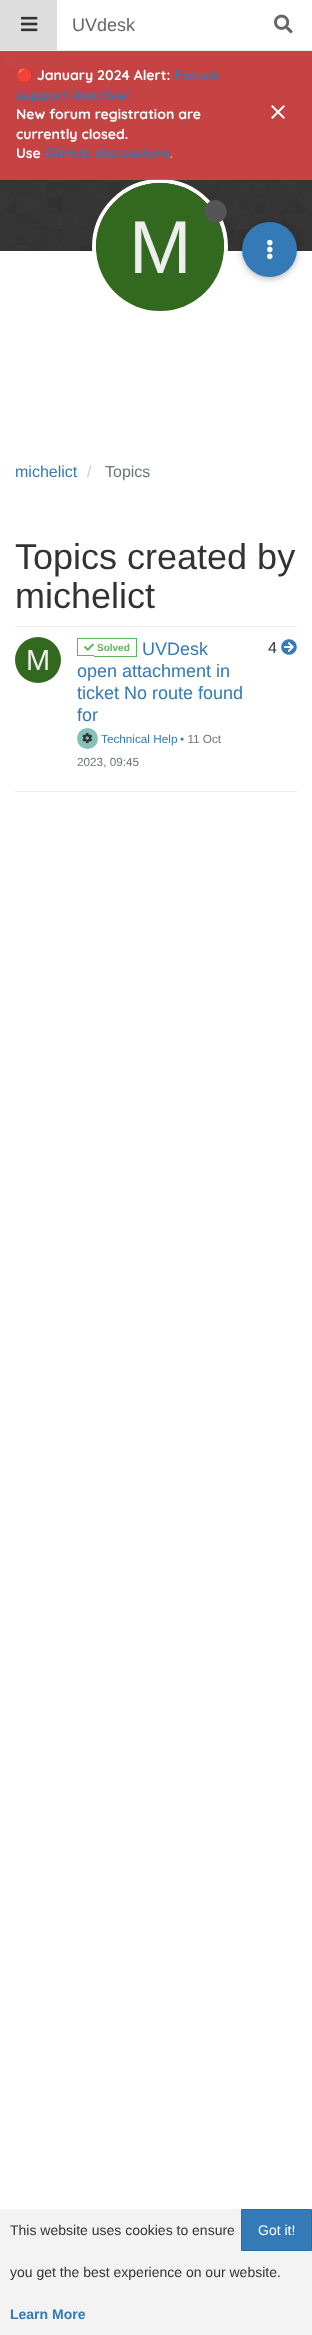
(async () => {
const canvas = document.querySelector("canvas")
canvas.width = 312
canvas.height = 2335
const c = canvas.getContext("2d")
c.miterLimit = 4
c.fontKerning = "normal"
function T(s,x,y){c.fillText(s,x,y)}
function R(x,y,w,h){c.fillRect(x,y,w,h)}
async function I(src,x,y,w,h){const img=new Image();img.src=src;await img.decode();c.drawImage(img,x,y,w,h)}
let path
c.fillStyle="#fff"
R(0,0,312,2335)
c.fillStyle="#eee"
R(0,50,312,1)
c.fillStyle="#ddd"
R(0,0,57,50)
await I("1.png",21,16,17,16)
c.font="18px Liberation Sans"
c.fillStyle="#666"
T("UVdesk",72,31)
await I("2.png",274,14,19,20)
await I("3.png",0,51,312,200)
c.beginPath()
c.arc(160,247,66,0,7)
c.strokeStyle="#fff"
c.lineWidth=4
c.stroke()
c.fillStyle="#33691e"
c.beginPath()
c.arc(160,247,64,0,7)
c.fill()
c.fillStyle="#555"
path = new Path2D("M207.5 203.5c10.5-10.5 26 5.5 16 16c-10.5 10-26-5.5-16-16z")
c.fill(path)
c.font="75px Liberation Sans"
c.fillStyle="#eee"
T("M",129,273)
c.fillStyle="#0000001f"
c.filter="blur(5px)"
c.beginPath()
c.roundRect(242,224,55,55,27.5)
c.fill()
c.filter="none"
c.fillStyle="#00000029"
c.filter="blur(2.5px)"
c.beginPath()
c.roundRect(242,224,55,55,27.5)
c.fill()
c.filter="none"
c.fillStyle="#337ab7"
c.beginPath()
c.arc(269.5,249.5,27.5,0,7)
c.fill()
await I("4.png",267,239,6,21)
c.font="16px Liberation Sans"
T("michelict",15,477)
c.fillStyle="#ccc"
T("/",87,477)
c.fillStyle="#6c757d"
T("Topics",105,477)
c.font="36px Liberation Sans"
c.fillStyle="#333"
T("Topics created by",15,569)
T("michelict",15,608)
c.fillStyle="#eee"
R(15,626,282,1)
R(15,791,282,1)
c.fillStyle="#33691e"
c.beginPath()
c.arc(38,660,23,0,7)
c.fill()
c.font="29px Liberation Sans"
c.fillStyle="#eee"
T("M",26,670)
c.fillStyle="#5cb85c"
R(77,638,60,1)
R(77,655,17,1)
R(77,638,1,18)
R(136,638,1,19)
R(94,656,43,1)
await I("5.png",84,643,10,8)
c.font="bold 10px Liberation Sans"
T("Solved",97,651)
c.font="18px Liberation Sans"
c.fillStyle="#337ab7"
T("UVDesk",142,655)
T("open attachment in",77,677)
T("ticket No route found",77,699)
T("for",77,721)
c.fillStyle="#86c1b9"
c.beginPath()
c.arc(87.5,738.5,10.5,0,7)
c.fill()
await I("6.png",82,733,11,11)
c.font="11.75px Liberation Sans"
c.fillStyle="#337ab7"
T("Technical Help",101,743)
c.fillStyle="#6c757d"
T("• 11 Oct",180,743)
T("2023, 09:45",77,766)
c.font="16px Liberation Sans"
c.fillStyle="#333"
T("4",268,653)
await I("7.png",281,639,16,16)
c.fillStyle="#db4545e0"
R(0,51,312,129)
c.font="bold 14px Noto Color Emoji"
c.fillStyle="#fff"
T("🔴",16,80)
c.font="bold 14px Quicksand"
T("January 2024 Alert:",37,80)
c.fillStyle="#337ab7"
T("Forum",175,80)
T("support inactive!",16,100)
c.fillStyle="#fff"
T("New forum registration are",16,119)
T("currently closed.",16,139)
T("Use",16,158)
c.fillStyle="#337ab7"
T("GitHub discussions",45,158)
c.font="14px Quicksand"
c.fillStyle="#fff"
T(".",170,158)
await I("8.png",271,105,14,14)
c.fillStyle="#f3f3f3"
R(0,2209,312,126)
c.font="14px Liberation Sans"
c.fillStyle="#333"
T("This website uses cookies to ensure",10,2235)
c.fillStyle="#337ab7"
c.beginPath()
c.rect(241.5,2209.5,70,41)
c.fill()
c.strokeStyle="#2e6da4"
c.lineWidth=1
c.stroke()
c.fillStyle="#fff"
T("Got it!",258,2235)
c.fillStyle="#333"
T("you get the best experience on our website.",10,2277)
c.font="bold 14px Liberation Sans"
c.fillStyle="#337ab7"
T("Learn More",10,2319)
})()
